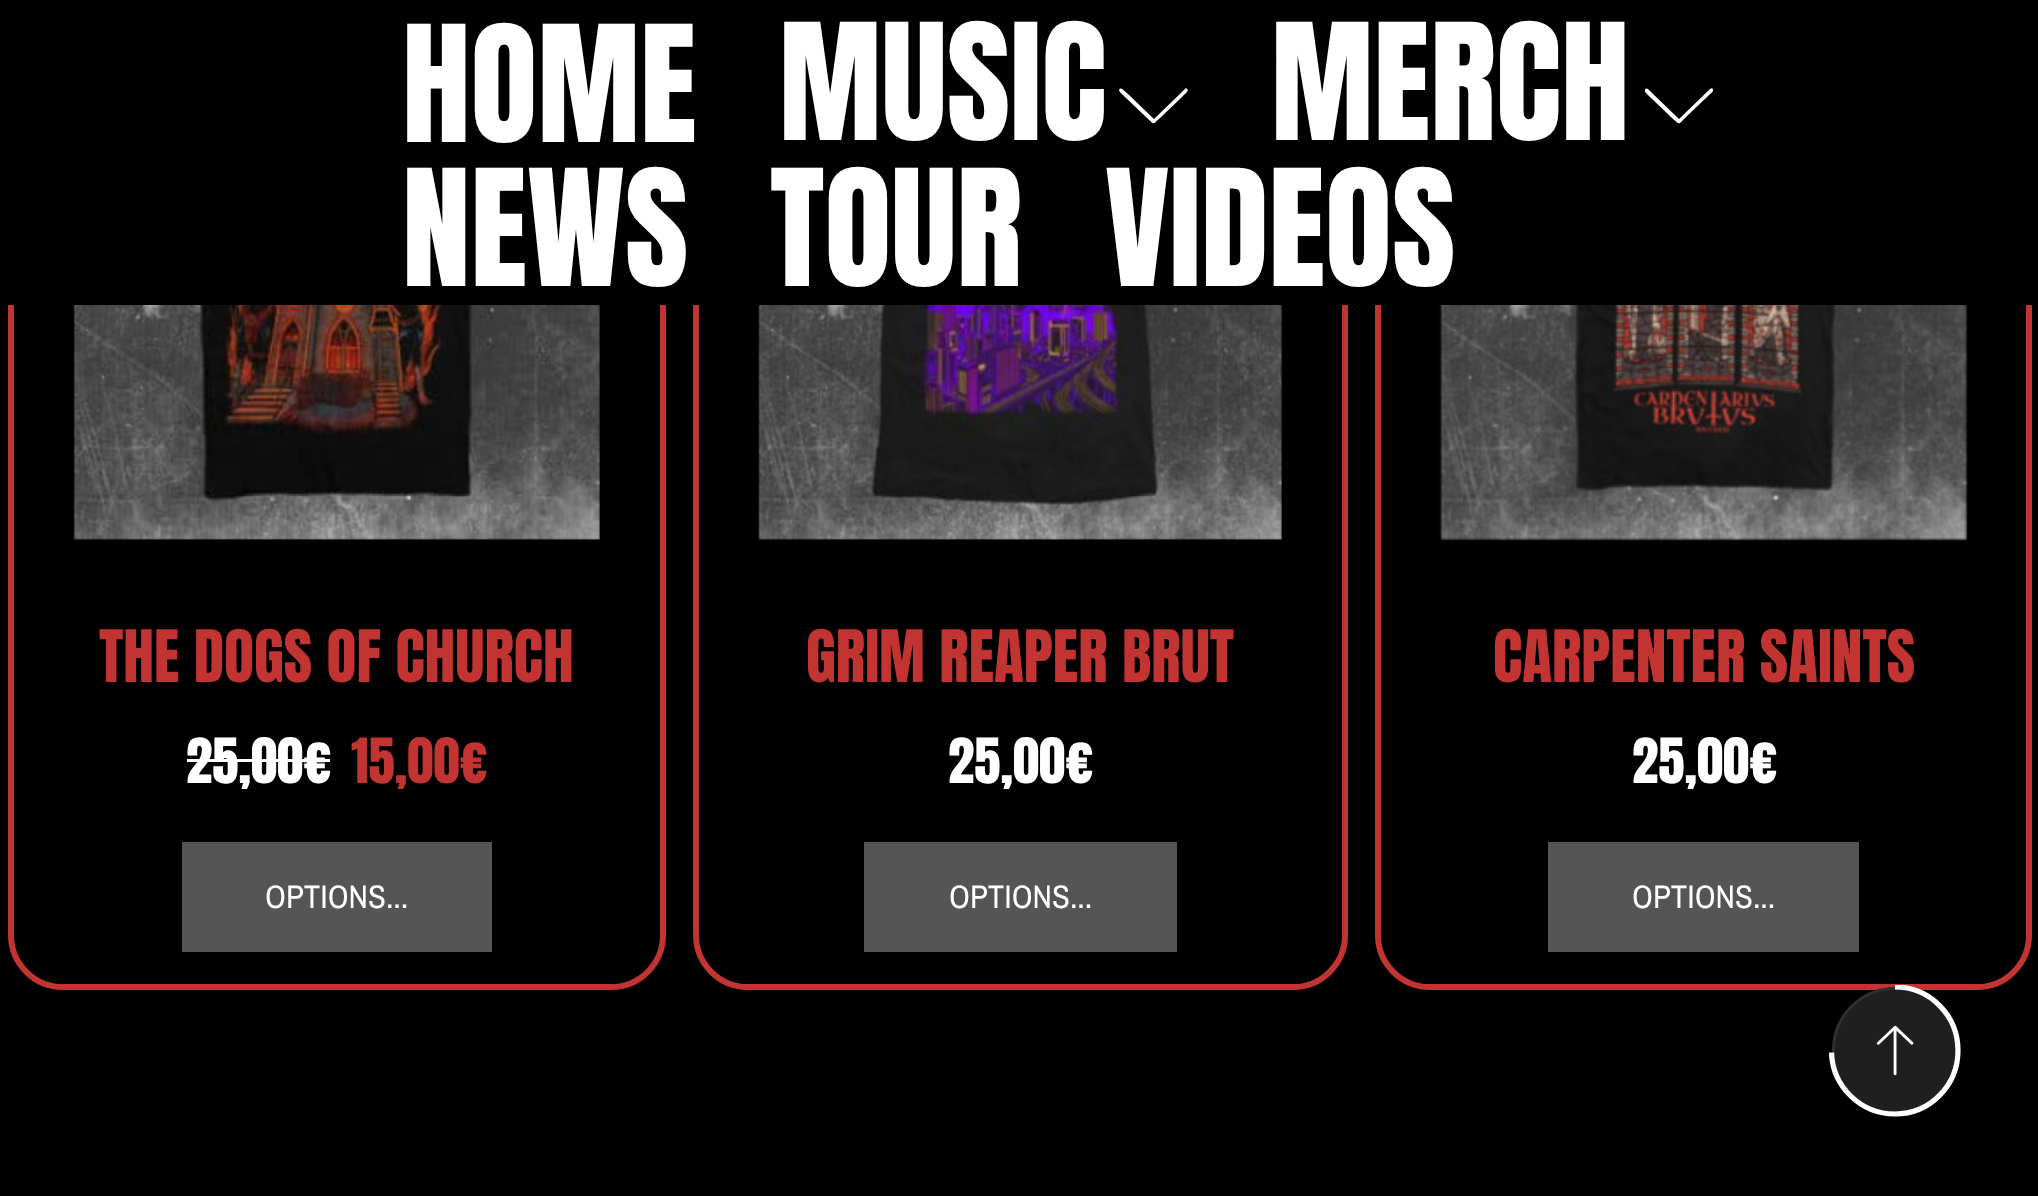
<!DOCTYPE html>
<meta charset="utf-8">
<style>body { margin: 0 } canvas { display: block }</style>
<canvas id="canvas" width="2038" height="1196"></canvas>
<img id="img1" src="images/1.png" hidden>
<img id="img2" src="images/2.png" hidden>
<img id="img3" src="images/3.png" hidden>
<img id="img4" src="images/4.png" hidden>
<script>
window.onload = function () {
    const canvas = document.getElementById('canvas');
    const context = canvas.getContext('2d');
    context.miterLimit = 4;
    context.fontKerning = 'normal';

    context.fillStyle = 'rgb(0, 0, 0)';
    context.fillRect(0, 0, 2038, 1196);
    context.beginPath();
    context.roundRect(11, -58, 652, 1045, 52);
    context.strokeStyle = 'rgb(194, 52, 50)';
    context.lineWidth = 6;
    context.stroke();
    context.beginPath();
    context.roundRect(696, -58, 649, 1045, 52);
    context.stroke();
    context.beginPath();
    context.roundRect(1378, -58, 651, 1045, 52);
    context.stroke();
    context.fillStyle = 'rgb(1, 1, 1)';
    context.fillRect(8, 0, 2024, 305);
    context.fillStyle = 'rgb(255, 255, 255)';
    context.beginPath();
    context.moveTo(1187, 89);
    context.bezierCurveTo(1187, 88, 1185, 88, 1185, 89);
    context.lineTo(1154, 119);
    context.lineTo(1128, 94);
    context.bezierCurveTo(1124, 91, 1121, 86, 1119, 90);
    context.bezierCurveTo(1119, 92, 1124, 96, 1125, 97);
    context.lineTo(1147, 118);
    context.bezierCurveTo(1155, 125, 1152, 125, 1160, 118);
    context.lineTo(1182, 97);
    context.bezierCurveTo(1184, 94, 1190, 91, 1187, 89);
    context.closePath();
    context.fill();
    context.save();
    context.beginPath();
    context.rect(1645, 72, 68, 68);
    context.clip();
    context.beginPath();
    context.moveTo(1713, 89);
    context.bezierCurveTo(1712, 88, 1711, 88, 1710, 89);
    context.lineTo(1679, 119);
    context.lineTo(1653, 94);
    context.bezierCurveTo(1650, 91, 1646, 86, 1645, 90);
    context.bezierCurveTo(1644, 92, 1649, 96, 1650, 97);
    context.lineTo(1672, 118);
    context.bezierCurveTo(1680, 125, 1678, 125, 1685, 118);
    context.lineTo(1707, 97);
    context.bezierCurveTo(1710, 94, 1715, 91, 1713, 89);
    context.closePath();
    context.fill();
    context.restore();
    context.drawImage(document.getElementById('img1'), 73, 305, 527, 235);
    context.fillRect(187, 759, 143, 3);
    context.fillStyle = 'rgb(85, 85, 85)';
    context.fillRect(182, 842, 310, 110);
    context.drawImage(document.getElementById('img2'), 758, 305, 524, 235);
    context.fillRect(864, 842, 313, 110);
    context.drawImage(document.getElementById('img3'), 1439, 305, 529, 236);
    context.fillRect(1548, 842, 311, 110);
    context.fillStyle = 'rgb(31, 31, 31)';
    context.beginPath();
    context.roundRect(1833.5, 988.5, 123, 124, 61.5);
    context.fill();
    context.strokeStyle = 'rgb(47, 47, 47)';
    context.lineWidth = 3;
    context.stroke();
    context.save();
    context.beginPath();
    context.rect(1829, 985, 132, 132);
    context.clip();
    context.beginPath();
    context.moveTo(1895, 987);
    context.bezierCurveTo(1930, 987, 1958, 1015.5, 1958, 1050.5);
    context.bezierCurveTo(1958, 1085.5, 1930, 1114, 1895, 1114);
    context.bezierCurveTo(1860.5, 1114, 1832.5, 1086.5, 1831.5, 1052.5);
    context.strokeStyle = 'rgb(255, 255, 255)';
    context.lineWidth = 5.2;
    context.stroke();
    context.restore();
    context.drawImage(document.getElementById('img4'), 1876, 1025, 38, 51);
    context.font = '137.5px Anton';
    context.fillStyle = 'rgb(255, 255, 255)';
    context.fillText('HOME', 402, 142);
    context.fillText('MUSIC', 779, 140);
    context.fillText('MERCH', 1271, 140);
    context.fillText('NEWS', 402, 286);
    context.fillText('TOUR', 770, 286);
    context.fillText('VIDEOS', 1105, 286);
    context.font = '61.5px Anton';
    context.fillStyle = 'rgb(194, 52, 50)';
    context.fillText('THE DOGS OF CHURCH', 99, 682);
    context.font = '53px Anton';
    context.fillStyle = 'rgb(255, 255, 255)';
    context.fillText('25,00€', 186, 783);
    context.fillStyle = 'rgb(194, 52, 50)';
    context.fillText('15,00€', 351, 783);
    context.font = '32.75px Archivo Narrow';
    context.fillStyle = 'rgb(255, 255, 255)';
    context.fillText('OPTIONS...', 265, 908);
    context.font = '61.5px Anton';
    context.fillStyle = 'rgb(194, 52, 50)';
    context.fillText('GRIM REAPER BRUT', 806, 682);
    context.font = '53px Anton';
    context.fillStyle = 'rgb(255, 255, 255)';
    context.fillText('25,00€', 948, 783);
    context.font = '32.75px Archivo Narrow';
    context.fillText('OPTIONS...', 949, 908);
    context.font = '61.5px Anton';
    context.fillStyle = 'rgb(194, 52, 50)';
    context.fillText('CARPENTER SAINTS', 1493, 682);
    context.font = '53px Anton';
    context.fillStyle = 'rgb(255, 255, 255)';
    context.fillText('25,00€', 1632, 783);
    context.font = '32.75px Archivo Narrow';
    context.fillText('OPTIONS...', 1632, 908);
};
</script>
